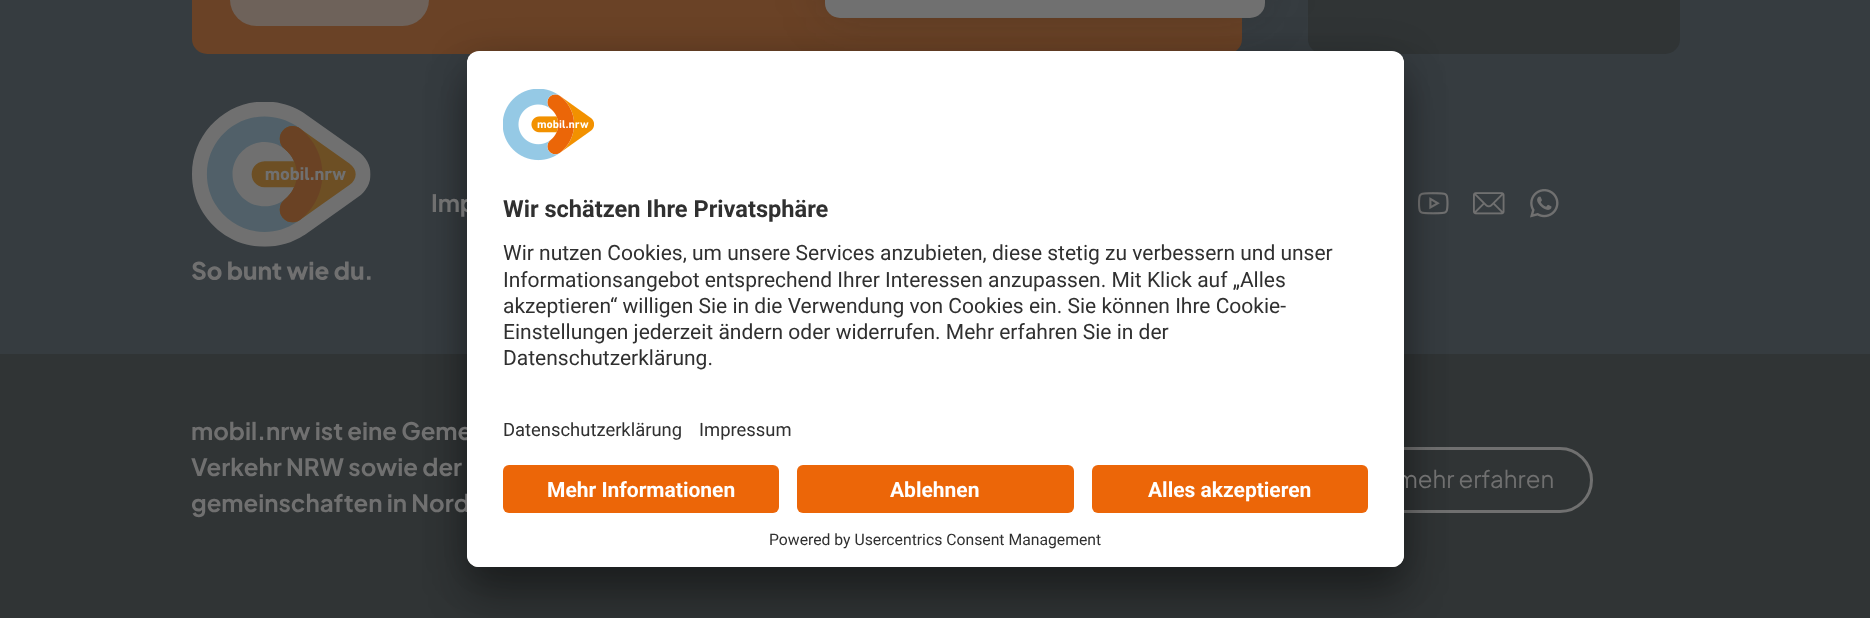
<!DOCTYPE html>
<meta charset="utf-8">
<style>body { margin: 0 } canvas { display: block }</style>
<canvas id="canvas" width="1870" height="618"></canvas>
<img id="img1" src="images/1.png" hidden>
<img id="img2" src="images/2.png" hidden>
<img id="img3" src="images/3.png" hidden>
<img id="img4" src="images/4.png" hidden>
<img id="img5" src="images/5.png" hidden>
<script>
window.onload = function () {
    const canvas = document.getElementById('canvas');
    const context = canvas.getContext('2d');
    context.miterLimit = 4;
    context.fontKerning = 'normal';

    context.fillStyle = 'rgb(54, 60, 64)';
    context.fillRect(0, 0, 1870, 618);
    context.fillStyle = 'rgb(106, 66, 38)';
    context.beginPath();
    context.roundRect(192, -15, 1050, 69, 15);
    context.fill();
    context.fillStyle = 'rgb(110, 98, 90)';
    context.beginPath();
    context.roundRect(230, -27, 199, 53, 27);
    context.fill();
    context.fillStyle = 'rgb(48, 52, 53)';
    context.beginPath();
    context.roundRect(1308, -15, 372, 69, 15);
    context.fill();
    context.fillStyle = 'rgba(36, 36, 36, 0.2)';
    context.filter = 'blur(24px)';
    context.beginPath();
    context.roundRect(825, -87, 440, 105, 15);
    context.fill();
    context.filter = 'none';
    context.fillStyle = 'rgb(112, 112, 112)';
    context.beginPath();
    context.roundRect(825, -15, 440, 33, 15);
    context.fill();
    context.drawImage(document.getElementById('img1'), 192, 102, 179, 178);
    context.drawImage(document.getElementById('img2'), 1418, 192, 31, 23);
    context.drawImage(document.getElementById('img3'), 1473, 192, 32, 23);
    context.drawImage(document.getElementById('img4'), 1530, 189, 29, 29);
    context.fillStyle = 'rgb(48, 52, 53)';
    context.fillRect(0, 354, 1870, 264);
    context.beginPath();
    context.roundRect(1315.5, 448.5, 276, 63, 31.5);
    context.strokeStyle = 'rgb(112, 112, 112)';
    context.lineWidth = 3;
    context.stroke();
    context.fillStyle = 'rgba(0, 0, 0, 0.3)';
    context.filter = 'blur(21px)';
    context.beginPath();
    context.roundRect(467, 81, 937, 516, 12);
    context.fill();
    context.filter = 'none';
    context.fillStyle = 'rgba(0, 0, 0, 0.22)';
    context.filter = 'blur(19.5px)';
    context.beginPath();
    context.roundRect(467, 59, 937, 516, 12);
    context.fill();
    context.filter = 'none';
    context.font = 'bold 24px Plus Jakarta Sans';
    context.fillStyle = 'rgb(112, 112, 112)';
    context.fillText('Imp', 431, 212);
    context.fillText('mobil.nrw ist eine Geme', 191, 440);
    context.fillText('Verkehr NRW sowie der', 191, 476);
    context.fillText('gemeinschaften in Nord', 191, 512);
    context.font = '24px Plus Jakarta Sans';
    context.fillText('mehr erfahren', 1396, 488);
    context.fillStyle = 'rgb(255, 255, 255)';
    context.beginPath();
    context.roundRect(467, 51, 937, 516, 12);
    context.fill();
    context.save();
    context.beginPath();
    context.roundRect(467, 51, 937, 516, 12);
    context.clip();
    context.beginPath();
    context.roundRect(467, 51, 937, 402, [12, 12, 0, 0]);
    context.clip();
    context.fillRect(467, 53, 937, 400);
    context.restore();
    context.drawImage(document.getElementById('img5'), 503, 89, 91, 72);
    context.font = 'bold 23.6px Roboto';
    context.fillStyle = 'rgb(48, 48, 48)';
    context.fillText('Wir schätzen Ihre Privatsphäre', 503, 217);
    context.font = '21px Roboto';
    context.fillText('Wir nutzen Cookies, um unsere Services anzubieten, diese stetig zu verbessern und unser', 503, 260);
    context.fillText('Informationsangebot entsprechend Ihrer Interessen anzupassen. Mit Klick auf „Alles', 503, 287);
    context.fillText('akzeptieren“ willigen Sie in die Verwendung von Cookies ein. Sie können Ihre Cookie-', 503, 313);
    context.fillText('Einstellungen jederzeit ändern oder widerrufen. Mehr erfahren Sie in der', 503, 339);
    context.fillText('Datenschutzerklärung.', 503, 365);
    context.font = '18.4px Roboto';
    context.fillText('Datenschutzerklärung', 503, 436);
    context.fillText('Impressum', 699, 436);
    context.fillStyle = 'rgb(255, 255, 255)';
    context.beginPath();
    context.roundRect(467, 453, 937, 114, [0, 0, 12, 12]);
    context.fill();
    context.fillStyle = 'rgb(236, 102, 8)';
    context.beginPath();
    context.roundRect(503, 465, 276, 48, 6);
    context.fill();
    context.font = 'bold 21px Roboto';
    context.fillStyle = 'rgb(255, 255, 255)';
    context.fillText('Mehr Informationen', 547, 497);
    context.fillStyle = 'rgb(236, 102, 8)';
    context.beginPath();
    context.roundRect(797, 465, 277, 48, 6);
    context.fill();
    context.fillStyle = 'rgb(255, 255, 255)';
    context.fillText('Ablehnen', 890, 497);
    context.fillStyle = 'rgb(236, 102, 8)';
    context.beginPath();
    context.roundRect(1092, 465, 276, 48, 6);
    context.fill();
    context.fillStyle = 'rgb(255, 255, 255)';
    context.fillText('Alles akzeptieren', 1148, 497);
    context.font = '15.75px Roboto';
    context.fillStyle = 'rgb(48, 48, 48)';
    context.fillText('Powered by Usercentrics Consent Management', 769, 545);
};
</script>
